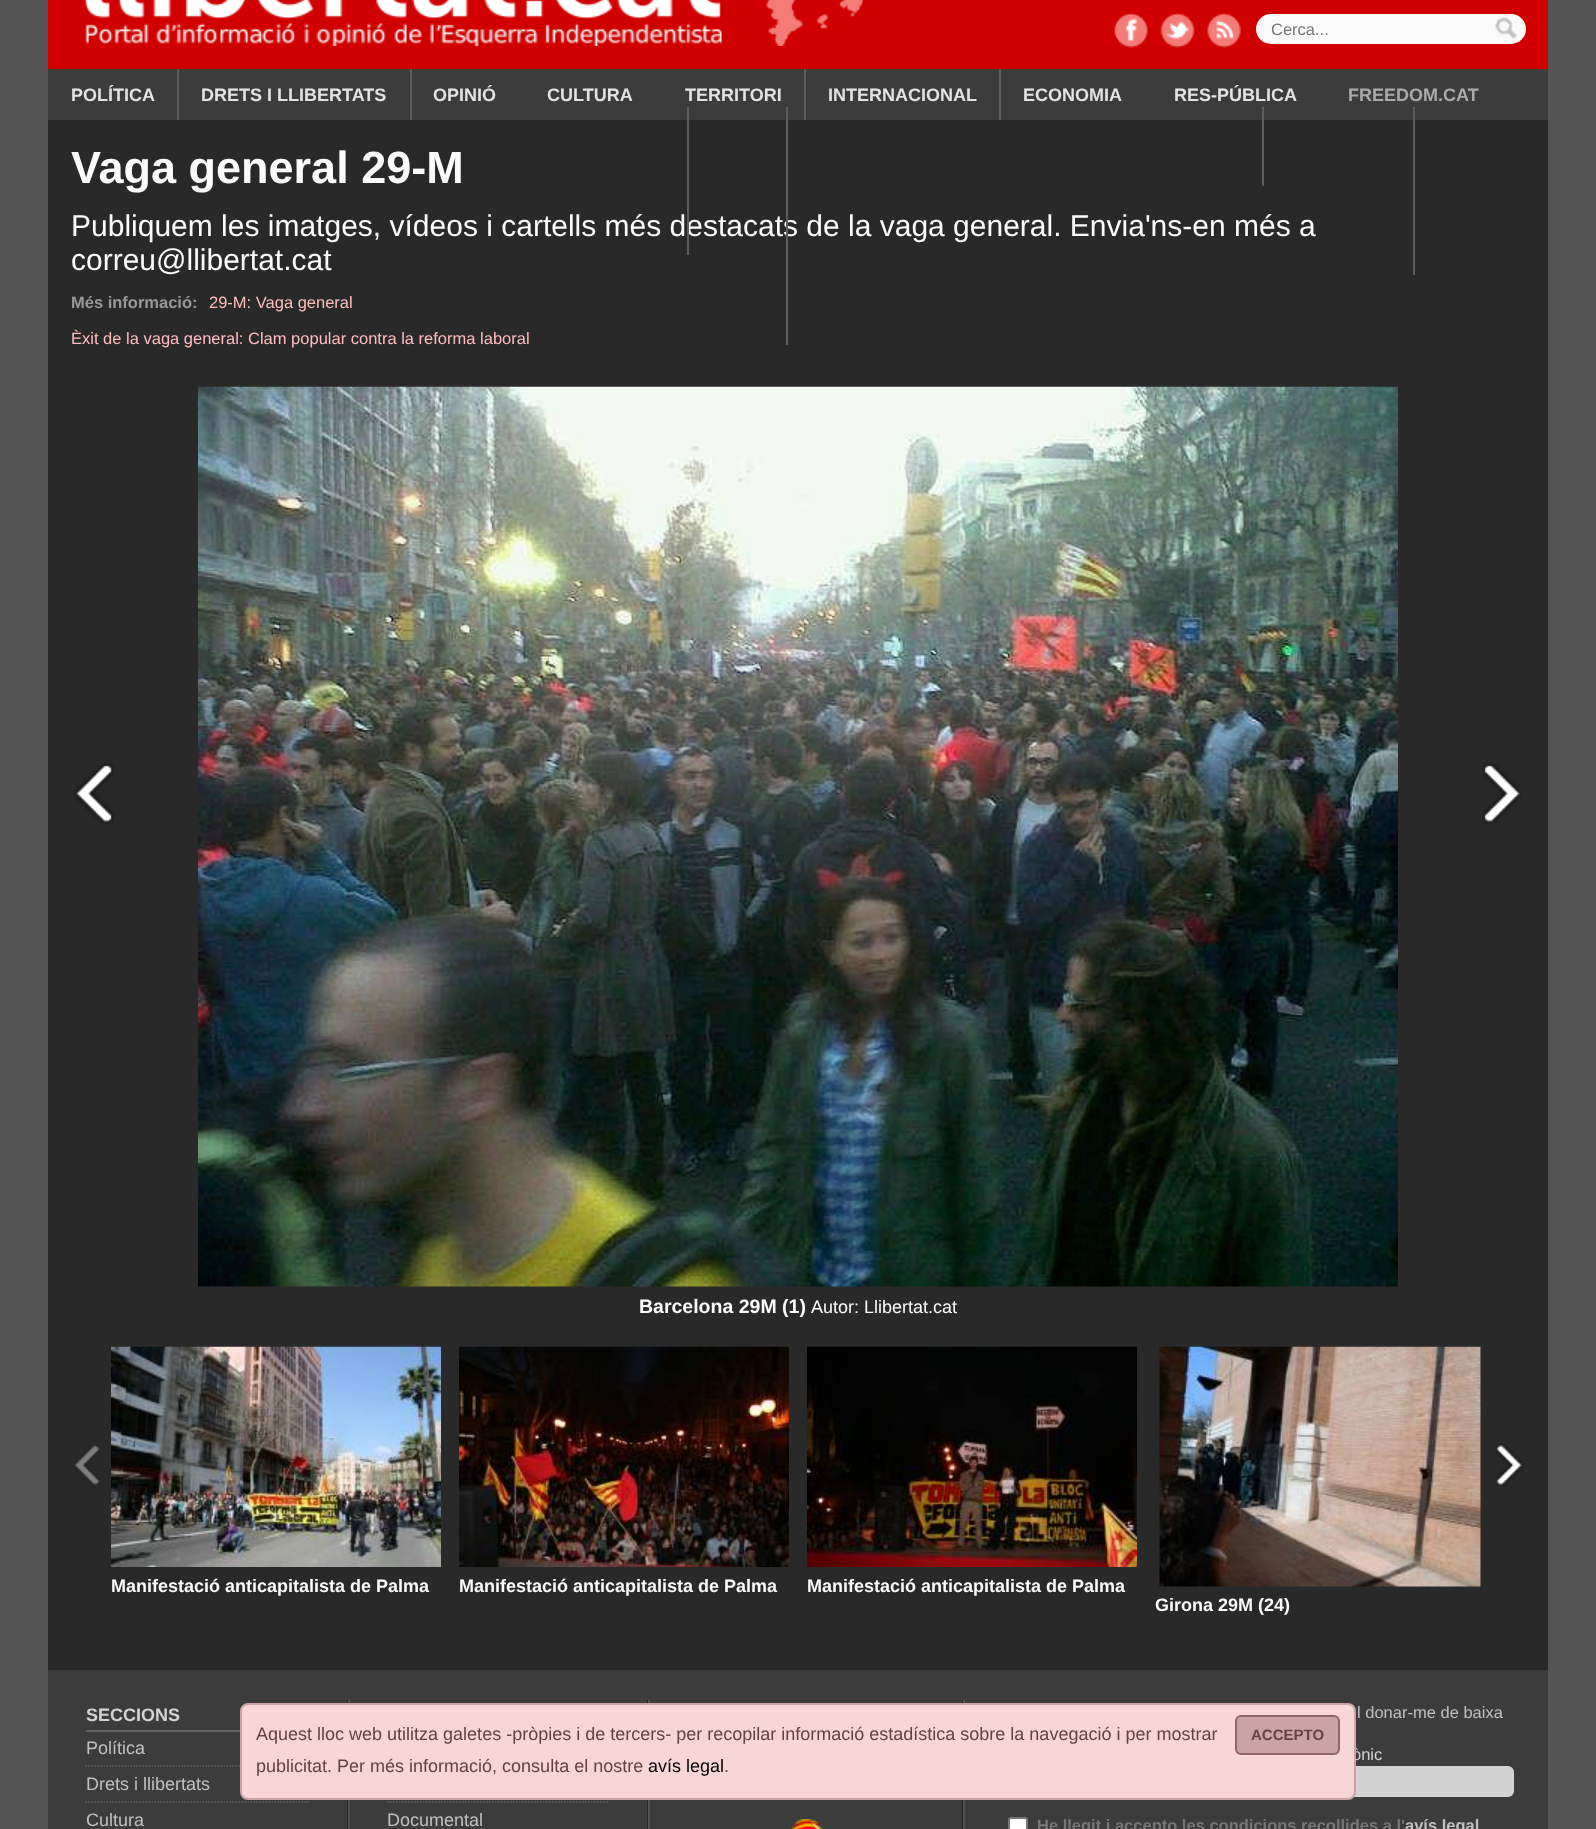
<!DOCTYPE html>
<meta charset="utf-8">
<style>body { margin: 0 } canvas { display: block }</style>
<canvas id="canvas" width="1596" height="1829"></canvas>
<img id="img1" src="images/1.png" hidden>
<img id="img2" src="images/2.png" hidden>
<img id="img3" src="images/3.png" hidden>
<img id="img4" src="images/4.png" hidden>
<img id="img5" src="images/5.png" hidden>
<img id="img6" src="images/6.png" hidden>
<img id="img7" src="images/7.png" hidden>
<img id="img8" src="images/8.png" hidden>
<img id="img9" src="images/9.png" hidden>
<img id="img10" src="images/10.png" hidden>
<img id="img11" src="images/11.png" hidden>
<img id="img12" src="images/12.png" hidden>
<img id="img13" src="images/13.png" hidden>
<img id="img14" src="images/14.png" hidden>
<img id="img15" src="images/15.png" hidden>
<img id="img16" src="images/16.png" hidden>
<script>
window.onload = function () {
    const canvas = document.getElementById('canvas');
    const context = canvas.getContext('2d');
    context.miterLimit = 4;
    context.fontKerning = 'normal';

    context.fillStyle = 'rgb(84, 84, 84)';
    context.fillRect(0, 0, 1596, 1829);
    context.fillStyle = 'rgb(208, 0, 0)';
    context.fillRect(48, 0, 1500, 69);
    context.drawImage(document.getElementById('img1'), 766, 0, 98, 46);
    context.drawImage(document.getElementById('img2'), 85, 0, 637, 46);
    context.drawImage(document.getElementById('img3'), 1114, 13, 34, 35);
    context.drawImage(document.getElementById('img4'), 1160, 13, 35, 35);
    context.drawImage(document.getElementById('img5'), 1207, 13, 34, 35);
    context.fillStyle = 'rgb(250, 250, 250)';
    context.beginPath();
    context.roundRect(1256, 14, 270, 30, 15);
    context.fill();
    context.drawImage(document.getElementById('img6'), 1495, 17, 22, 22);
    context.fillStyle = 'rgb(60, 60, 60)';
    context.fillRect(48, 69, 1500, 51);
    context.fillStyle = 'rgb(93, 93, 93)';
    context.fillRect(177, 69, 2, 51);
    context.fillRect(410, 69, 2, 51);
    context.fillRect(804, 69, 2, 51);
    context.fillRect(999, 69, 2, 51);
    context.fillStyle = 'rgb(41, 41, 41)';
    context.fillRect(48, 120, 1500, 1550);
    context.fillStyle = 'rgb(93, 93, 93)';
    context.fillRect(1262, 107, 2, 79);
    context.fillRect(1413, 107, 2, 168);
    context.drawImage(document.getElementById('img7'), 75, 763, 39, 61);
    context.drawImage(document.getElementById('img8'), 198, 386, 1200, 901);
    context.drawImage(document.getElementById('img9'), 1482, 763, 39, 61);
    context.drawImage(document.getElementById('img10'), 74, 1445, 26, 40);
    context.drawImage(document.getElementById('img11'), 1495, 1444, 28, 42);
    context.drawImage(document.getElementById('img12'), 111, 1346, 330, 221);
    context.drawImage(document.getElementById('img13'), 459, 1346, 330, 221);
    context.drawImage(document.getElementById('img14'), 807, 1346, 330, 221);
    context.drawImage(document.getElementById('img15'), 1159, 1346, 322, 241);
    context.fillStyle = 'rgb(60, 60, 60)';
    context.fillRect(48, 1670, 1500, 159);
    context.fillStyle = 'rgb(37, 37, 37)';
    context.fillRect(347, 1700, 1, 129);
    context.fillStyle = 'rgb(99, 99, 99)';
    context.fillRect(86, 1730, 154, 2);
    context.beginPath();
    context.moveTo(85.5, 1766);
    context.lineTo(309, 1766);
    context.strokeStyle = 'rgb(99, 99, 99)';
    context.lineWidth = 1.5;
    context.setLineDash([1.5, 1.5]);
    context.stroke();
    context.beginPath();
    context.moveTo(85.5, 1802);
    context.lineTo(309, 1802);
    context.stroke();
    context.fillStyle = 'rgb(37, 37, 37)';
    context.fillRect(647, 1700, 1, 129);
    context.fillStyle = 'rgb(82, 82, 82)';
    context.fillRect(348, 1700, 2, 129);
    context.beginPath();
    context.moveTo(387, 1802);
    context.lineTo(609, 1802);
    context.stroke();
    context.drawImage(document.getElementById('img16'), 790, 1819, 33, 10);
    context.fillStyle = 'rgb(37, 37, 37)';
    context.fillRect(962, 1700, 1, 129);
    context.fillStyle = 'rgb(82, 82, 82)';
    context.fillRect(648, 1700, 2, 129);
    context.fillRect(963, 1700, 2, 129);
    context.fillStyle = 'rgb(211, 211, 211)';
    context.beginPath();
    context.roundRect(1257, 1766, 257, 31, 6);
    context.fill();
    context.fillStyle = 'rgb(255, 255, 255)';
    context.beginPath();
    context.roundRect(1009, 1818, 18, 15, 2);
    context.fill();
    context.strokeStyle = 'rgb(118, 118, 118)';
    context.lineWidth = 2;
    context.setLineDash([]);
    context.stroke();
    context.font = '16.5px Liberation Sans';
    context.fillStyle = 'rgb(119, 119, 119)';
    context.fillText('Cerca...', 1271, 35);
    context.font = 'bold 18px Liberation Sans';
    context.fillStyle = 'rgb(227, 227, 227)';
    context.fillText('POLÍTICA', 71, 101);
    context.fillText('DRETS I LLIBERTATS', 201, 101);
    context.fillText('OPINIÓ', 433, 101);
    context.fillText('CULTURA', 547, 101);
    context.fillText('TERRITORI', 685, 101);
    context.fillText('INTERNACIONAL', 828, 101);
    context.fillText('ECONOMIA', 1023, 101);
    context.fillText('RES-PÚBLICA', 1174, 101);
    context.fillStyle = 'rgb(170, 170, 170)';
    context.fillText('FREEDOM.CAT', 1348, 101);
    context.font = 'bold 45px Liberation Sans';
    context.fillStyle = 'rgb(251, 251, 251)';
    context.fillText('Vaga general 29-M', 71, 183);
    context.font = '30px Liberation Sans';
    context.fillText('Publiquem les imatges, vídeos i cartells més destacats de la vaga general. Envia\'ns-en més a', 71, 236);
    context.fillStyle = 'rgb(93, 93, 93)';
    context.fillRect(786, 107, 2, 238);
    context.fillRect(687, 107, 2, 148);
    context.fillStyle = 'rgb(251, 251, 251)';
    context.fillText('correu@llibertat.cat', 71, 270);
    context.font = 'bold 16.5px Liberation Sans';
    context.fillStyle = 'rgb(152, 152, 152)';
    context.fillText('Més informació:', 71, 308);
    context.font = '16.5px Liberation Sans';
    context.fillStyle = 'rgb(255, 190, 190)';
    context.fillText('29-M: Vaga general', 209, 308);
    context.fillText('Èxit de la vaga general: Clam popular contra la reforma laboral', 71, 344);
    context.save();
    context.beginPath();
    context.rect(71, 387, 1455, 930);
    context.clip();
    context.font = 'bold 19.5px Liberation Sans';
    context.fillStyle = 'rgb(251, 251, 251)';
    context.fillText('Barcelona 29M (1)', 639, 1313);
    context.restore();
    context.font = '18px Liberation Sans';
    context.fillStyle = 'rgb(251, 251, 251)';
    context.fillText('Autor: Llibertat.cat', 811, 1313);
    context.font = 'bold 18px Liberation Sans';
    context.fillText('Manifestació anticapitalista de Palma', 111, 1592);
    context.fillText('Manifestació anticapitalista de Palma', 459, 1592);
    context.fillText('Manifestació anticapitalista de Palma', 807, 1592);
    context.fillText('Girona 29M (24)', 1155, 1611);
    context.fillStyle = 'rgb(211, 211, 211)';
    context.fillText('SECCIONS', 86, 1721);
    context.font = '18px Liberation Sans';
    context.fillStyle = 'rgb(192, 192, 192)';
    context.fillText('Política', 86, 1754);
    context.fillText('Drets i llibertats', 86, 1790);
    context.fillText('Cultura', 86, 1826);
    context.fillText('Documental', 387, 1826);
    context.font = '16.5px Liberation Sans';
    context.fillText('l donar-me de baixa', 1357, 1718);
    context.fillStyle = 'rgb(211, 211, 211)';
    context.fillText('ònic', 1352, 1760);
    context.fillStyle = 'rgb(248, 214, 214)';
    context.beginPath();
    context.roundRect(241, 1704, 1114, 95, 7);
    context.fill();
    context.strokeStyle = 'rgb(202, 164, 164)';
    context.stroke();
    context.font = '18px Liberation Sans';
    context.fillStyle = 'rgb(100, 66, 66)';
    context.fillText('.', 724, 1772);
    context.fillStyle = 'rgb(0, 0, 0)';
    context.fillText('avís legal', 648, 1772);
    context.fillStyle = 'rgb(100, 66, 66)';
    context.fillText('publicitat. Per més informació, consulta el nostre', 256, 1772);
    context.fillText('Aquest lloc web utilitza galetes -pròpies i de tercers- per recopilar informació estadística sobre la navegació i per mostrar', 256, 1740);
    context.fillStyle = 'rgb(202, 164, 164)';
    context.beginPath();
    context.roundRect(1236, 1716, 103, 38, 5);
    context.fill();
    context.strokeStyle = 'rgb(145, 103, 103)';
    context.stroke();
    context.font = 'bold 15px Liberation Sans';
    context.fillStyle = 'rgb(100, 66, 66)';
    context.fillText('ACCEPTO', 1251, 1740);
    context.font = 'bold 16.5px Liberation Sans';
    context.fillStyle = 'rgb(119, 119, 119)';
    context.fillText('He llegit i accepto les condicions recollides a l\'', 1037, 1831);
    context.fillStyle = 'rgb(192, 192, 192)';
    context.fillText('avís legal', 1405, 1831);
};
</script>
